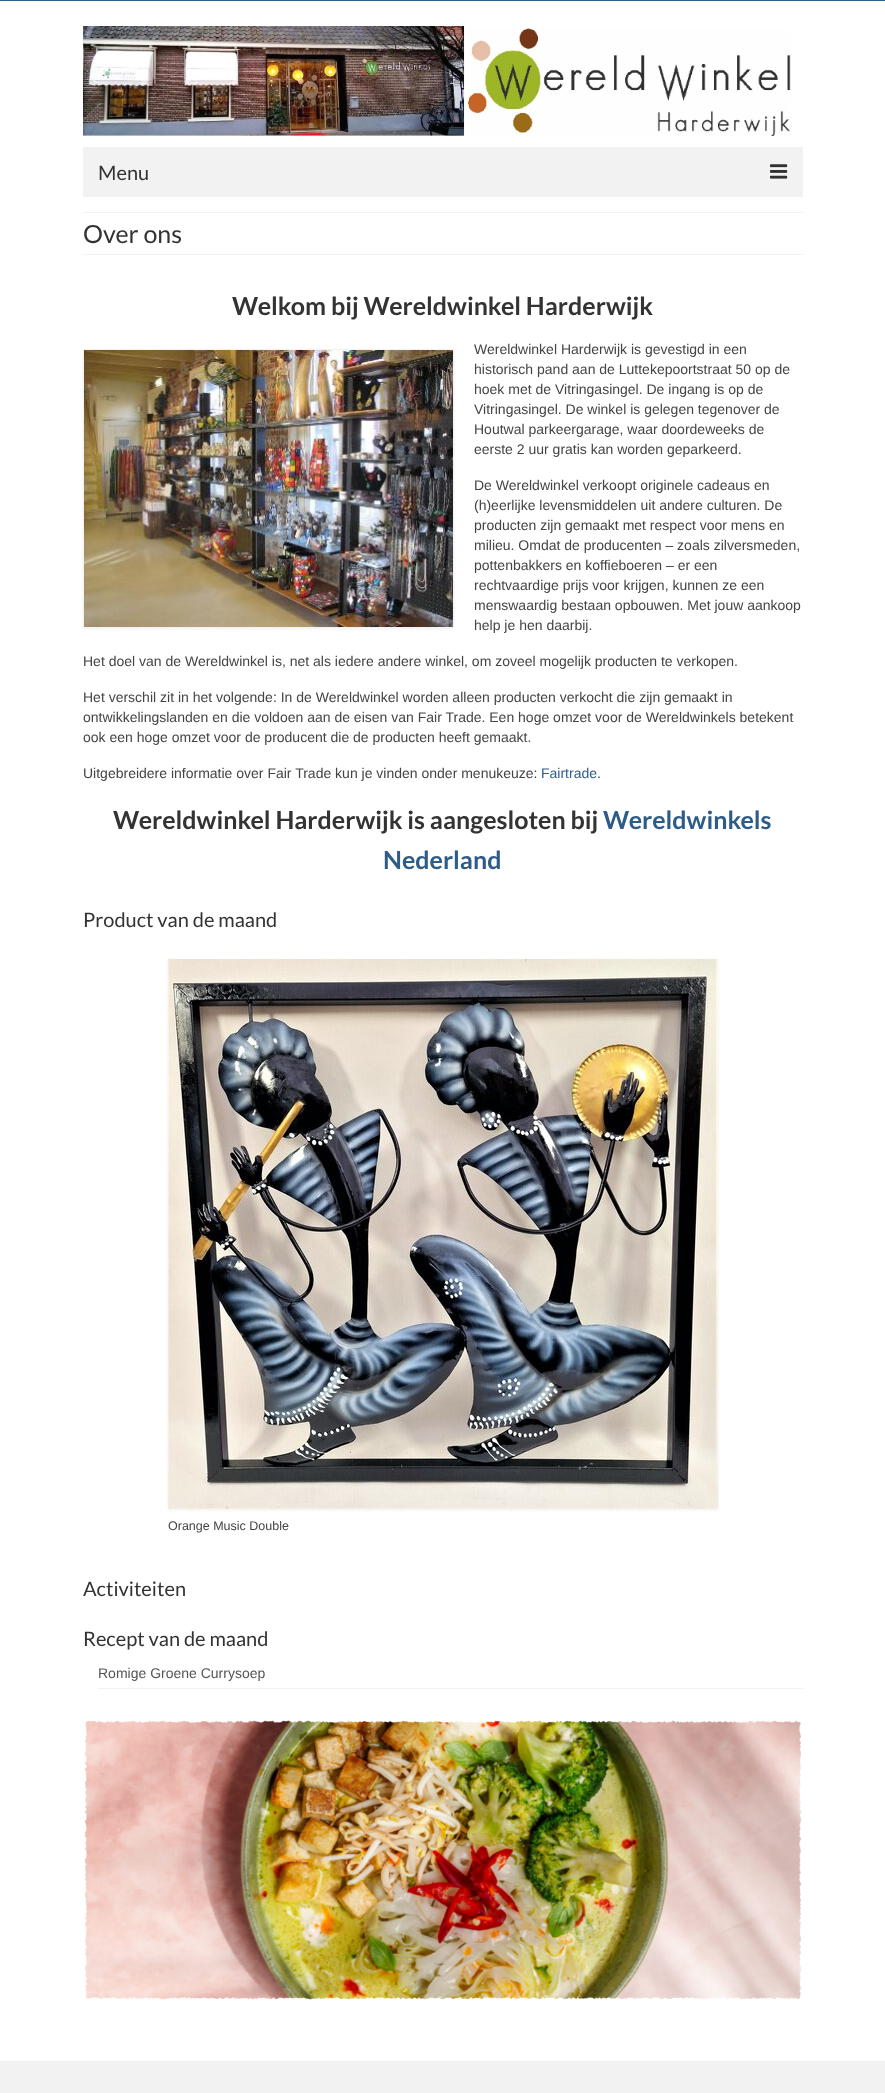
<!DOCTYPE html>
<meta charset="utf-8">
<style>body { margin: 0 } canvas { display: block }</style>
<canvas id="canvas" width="885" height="2093"></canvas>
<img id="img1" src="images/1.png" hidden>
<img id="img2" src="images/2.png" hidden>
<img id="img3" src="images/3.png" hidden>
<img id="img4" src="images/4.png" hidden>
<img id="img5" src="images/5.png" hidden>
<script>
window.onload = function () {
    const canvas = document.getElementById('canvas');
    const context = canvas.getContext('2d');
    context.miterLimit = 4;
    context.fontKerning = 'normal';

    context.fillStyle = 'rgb(255, 255, 255)';
    context.fillRect(0, 0, 885, 2093);
    context.fillStyle = 'rgb(45, 92, 136)';
    context.fillRect(0, 0, 885, 1);
    context.drawImage(document.getElementById('img1'), 83, 26, 708, 110);
    context.fillStyle = 'rgb(242, 242, 242)';
    context.fillRect(83, 147, 720, 50);
    context.drawImage(document.getElementById('img2'), 770, 164, 18, 15);
    context.fillRect(83, 212, 720, 1);
    context.fillRect(83, 254, 720, 1);
    context.fillStyle = 'rgba(0, 0, 0, 0.06)';
    context.filter = 'blur(1.5px)';
    context.beginPath();
    context.rect(83, 350, 371, 279);
    context.fill();
    context.filter = 'none';
    context.strokeStyle = 'rgb(242, 242, 242)';
    context.strokeRect(83.5, 349.5, 370, 278);
    context.drawImage(document.getElementById('img3'), 84, 350, 369, 277);
    context.filter = 'blur(1.5px)';
    context.beginPath();
    context.rect(168, 960, 550, 550);
    context.fill();
    context.filter = 'none';
    context.drawImage(document.getElementById('img4'), 168, 959, 550, 550);
    context.fillStyle = 'rgb(242, 242, 242)';
    context.fillRect(98, 1688, 705, 1);
    context.drawImage(document.getElementById('img5'), 84, 1720, 718, 280);
    context.fillRect(0, 2061, 885, 32);
    context.font = '20px Lato';
    context.fillStyle = 'rgb(51, 51, 51)';
    context.fillText('Menu', 98, 180);
    context.font = '25px Lato';
    context.fillText('Over ons', 83, 243);
    context.font = 'bold 25px Lato';
    context.fillText('Welkom bij Wereldwinkel Harderwijk', 232, 315);
    context.font = '14px Liberation Sans';
    context.fillStyle = 'rgb(68, 68, 68)';
    context.fillText('Wereldwinkel Harderwijk is gevestigd in een', 474, 354);
    context.fillText('historisch pand aan de Luttekepoortstraat 50 op de', 474, 374);
    context.fillText('hoek met de Vitringasingel. De ingang is op de', 474, 394);
    context.fillText('Vitringasingel. De winkel is gelegen tegenover de', 474, 414);
    context.fillText('Houtwal parkeergarage, waar doordeweeks de', 474, 434);
    context.fillText('eerste 2 uur gratis kan worden geparkeerd.', 474, 454);
    context.fillText('De Wereldwinkel verkoopt originele cadeaus en', 474, 490);
    context.fillText('(h)eerlijke levensmiddelen uit andere culturen. De', 474, 510);
    context.fillText('producten zijn gemaakt met respect voor mens en', 474, 530);
    context.fillText('milieu. Omdat de producenten – zoals zilversmeden,', 474, 550);
    context.fillText('pottenbakkers en koffieboeren – er een', 474, 570);
    context.fillText('rechtvaardige prijs voor krijgen, kunnen ze een', 474, 590);
    context.fillText('menswaardig bestaan opbouwen. Met jouw aankoop', 474, 610);
    context.fillText('help je hen daarbij.', 474, 630);
    context.fillText('Het doel van de Wereldwinkel is, net als iedere andere winkel, om zoveel mogelijk producten te verkopen.', 83, 666);
    context.fillText('Het verschil zit in het volgende: In de Wereldwinkel worden alleen producten verkocht die zijn gemaakt in', 83, 702);
    context.fillText('ontwikkelingslanden en die voldoen aan de eisen van Fair Trade. Een hoge omzet voor de Wereldwinkels betekent', 83, 722);
    context.fillText('ook een hoge omzet voor de producent die de producten heeft gemaakt.', 83, 742);
    context.fillText('Uitgebreidere informatie over Fair Trade kun je vinden onder menukeuze:', 83, 778);
    context.fillStyle = 'rgb(45, 92, 136)';
    context.fillText('Fairtrade', 541, 778);
    context.fillStyle = 'rgb(68, 68, 68)';
    context.fillText('.', 597, 778);
    context.font = 'bold 25px Lato';
    context.fillStyle = 'rgb(51, 51, 51)';
    context.fillText('Wereldwinkel Harderwijk is aangesloten bij', 113, 829);
    context.fillStyle = 'rgb(45, 92, 136)';
    context.fillText('Wereldwinkels', 603, 829);
    context.fillText('Nederland', 383, 869);
    context.font = '20px Lato';
    context.fillStyle = 'rgb(51, 51, 51)';
    context.fillText('Product van de maand', 83, 927);
    context.font = '12.5px Liberation Sans';
    context.fillStyle = 'rgb(68, 68, 68)';
    context.fillText('Orange Music Double', 168, 1530);
    context.font = '20px Lato';
    context.fillStyle = 'rgb(51, 51, 51)';
    context.fillText('Activiteiten', 83, 1596);
    context.fillText('Recept van de maand', 83, 1646);
    context.font = '14px Liberation Sans';
    context.fillStyle = 'rgb(85, 85, 85)';
    context.fillText('Romige Groene Currysoep', 98, 1678);
};
</script>
